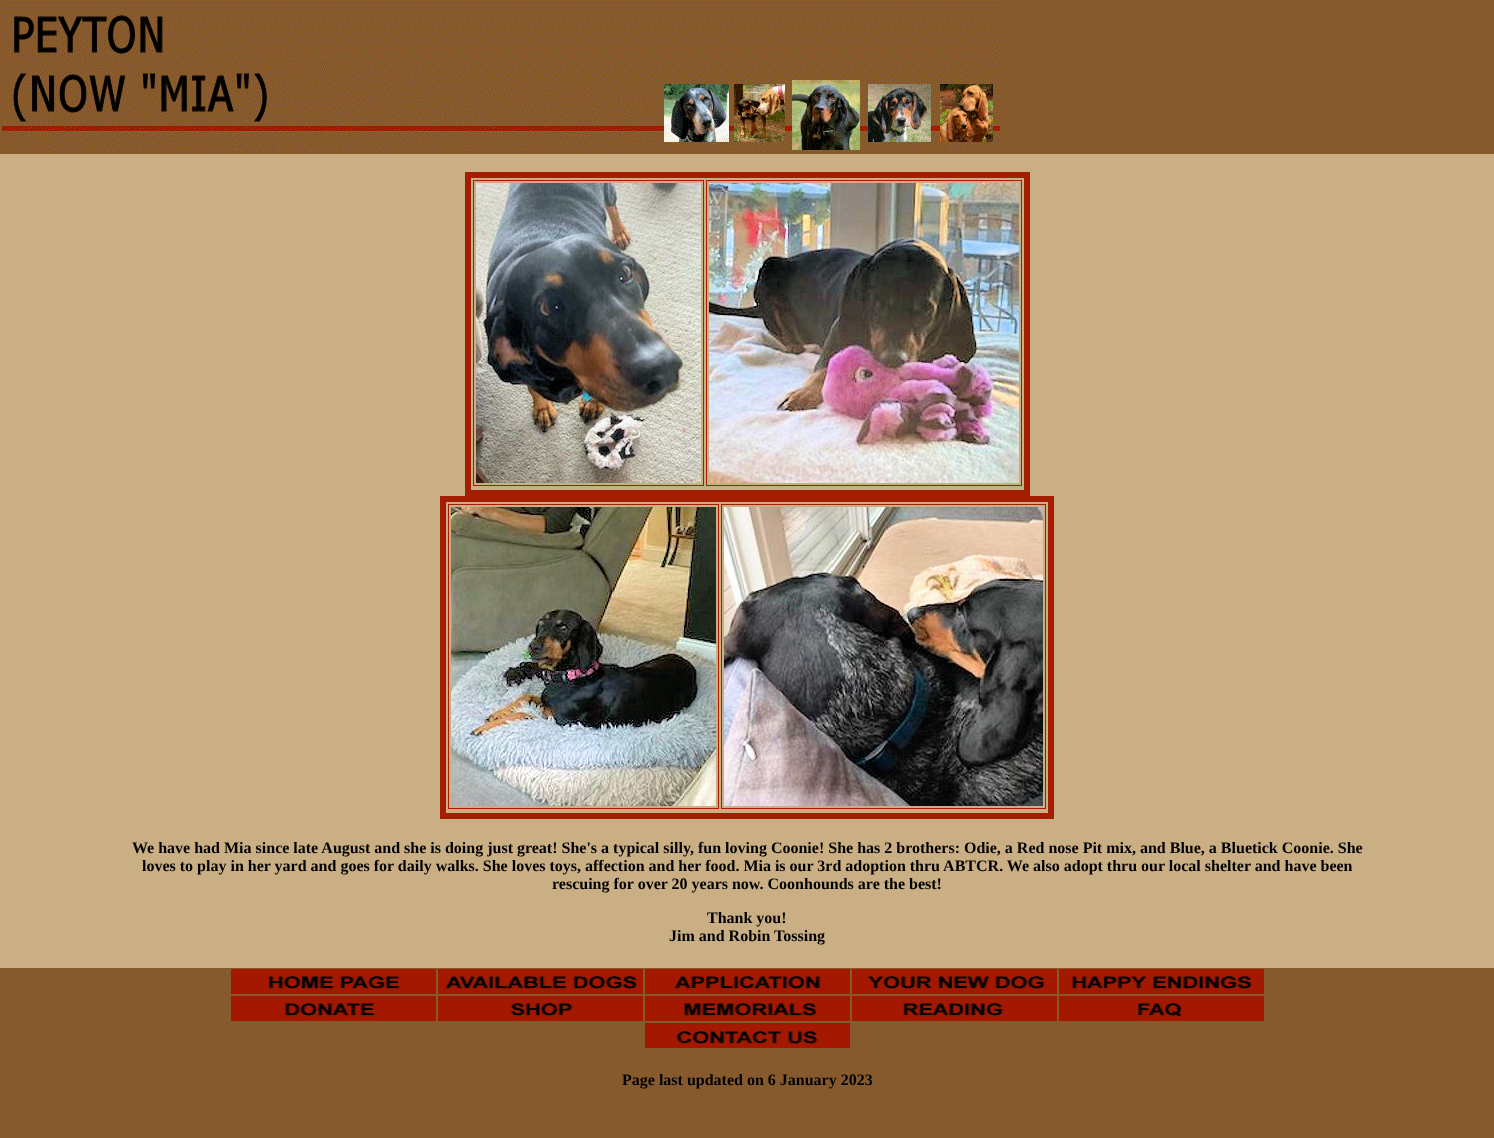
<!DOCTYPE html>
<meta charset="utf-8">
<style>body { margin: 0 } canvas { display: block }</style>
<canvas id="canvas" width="1494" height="1138"></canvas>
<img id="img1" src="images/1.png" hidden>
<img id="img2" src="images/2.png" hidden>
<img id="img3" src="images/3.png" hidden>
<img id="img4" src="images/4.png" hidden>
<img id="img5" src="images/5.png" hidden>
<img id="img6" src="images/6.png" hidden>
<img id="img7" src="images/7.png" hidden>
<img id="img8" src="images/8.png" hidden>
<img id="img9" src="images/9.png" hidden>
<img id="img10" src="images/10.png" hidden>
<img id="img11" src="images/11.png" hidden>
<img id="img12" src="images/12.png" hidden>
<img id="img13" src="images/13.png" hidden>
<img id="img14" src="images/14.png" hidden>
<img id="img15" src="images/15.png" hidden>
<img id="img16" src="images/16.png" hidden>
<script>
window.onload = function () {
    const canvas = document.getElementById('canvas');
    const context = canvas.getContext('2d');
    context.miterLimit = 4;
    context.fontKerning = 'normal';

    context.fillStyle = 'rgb(135, 90, 45)';
    context.fillRect(0, 0, 1494, 1138);
    context.drawImage(document.getElementById('img1'), 2, 2, 998, 150);
    context.fillStyle = 'rgb(202, 175, 133)';
    context.fillRect(0, 154, 1494, 814);
    context.strokeStyle = 'rgb(165, 30, 3)';
    context.lineWidth = 6;
    context.strokeRect(468, 175, 559, 318);
    context.lineWidth = 1;
    context.strokeRect(473.5, 180.5, 230, 305);
    context.drawImage(document.getElementById('img2'), 476, 183, 225, 300);
    context.strokeRect(706.5, 180.5, 315, 305);
    context.drawImage(document.getElementById('img3'), 709, 183, 310, 300);
    context.lineWidth = 6;
    context.strokeRect(443, 499, 608, 317);
    context.lineWidth = 1;
    context.strokeRect(448.5, 504.5, 270, 304);
    context.drawImage(document.getElementById('img4'), 451, 507, 265, 299);
    context.strokeRect(721.5, 504.5, 324, 304);
    context.drawImage(document.getElementById('img5'), 724, 507, 319, 299);
    context.drawImage(document.getElementById('img6'), 231, 969, 205, 25);
    context.drawImage(document.getElementById('img7'), 438, 969, 205, 25);
    context.drawImage(document.getElementById('img8'), 645, 969, 205, 25);
    context.drawImage(document.getElementById('img9'), 852, 969, 205, 25);
    context.drawImage(document.getElementById('img10'), 1059, 969, 205, 25);
    context.drawImage(document.getElementById('img11'), 231, 996, 205, 25);
    context.drawImage(document.getElementById('img12'), 438, 996, 205, 25);
    context.drawImage(document.getElementById('img13'), 645, 996, 205, 25);
    context.drawImage(document.getElementById('img14'), 852, 996, 205, 25);
    context.drawImage(document.getElementById('img15'), 1059, 996, 205, 25);
    context.drawImage(document.getElementById('img16'), 645, 1023, 205, 25);
    context.font = 'bold 16px Liberation Serif';
    context.fillStyle = 'rgb(0, 0, 0)';
    context.fillText('We have had Mia since late August and she is doing just great! She\'s a typical silly, fun loving Coonie! She has 2 brothers: Odie, a Red nose Pit mix, and Blue, a Bluetick Coonie. She', 132, 853);
    context.fillText('loves to play in her yard and goes for daily walks. She loves toys, affection and her food. Mia is our 3rd adoption thru ABTCR. We also adopt thru our local shelter and have been', 142, 871);
    context.fillText('rescuing for over 20 years now. Coonhounds are the best!', 552, 889);
    context.fillText('Thank you!', 707, 923);
    context.fillText('Jim and Robin Tossing', 669, 941);
    context.fillText('Page last updated on 6 January 2023', 622, 1085);
};
</script>
